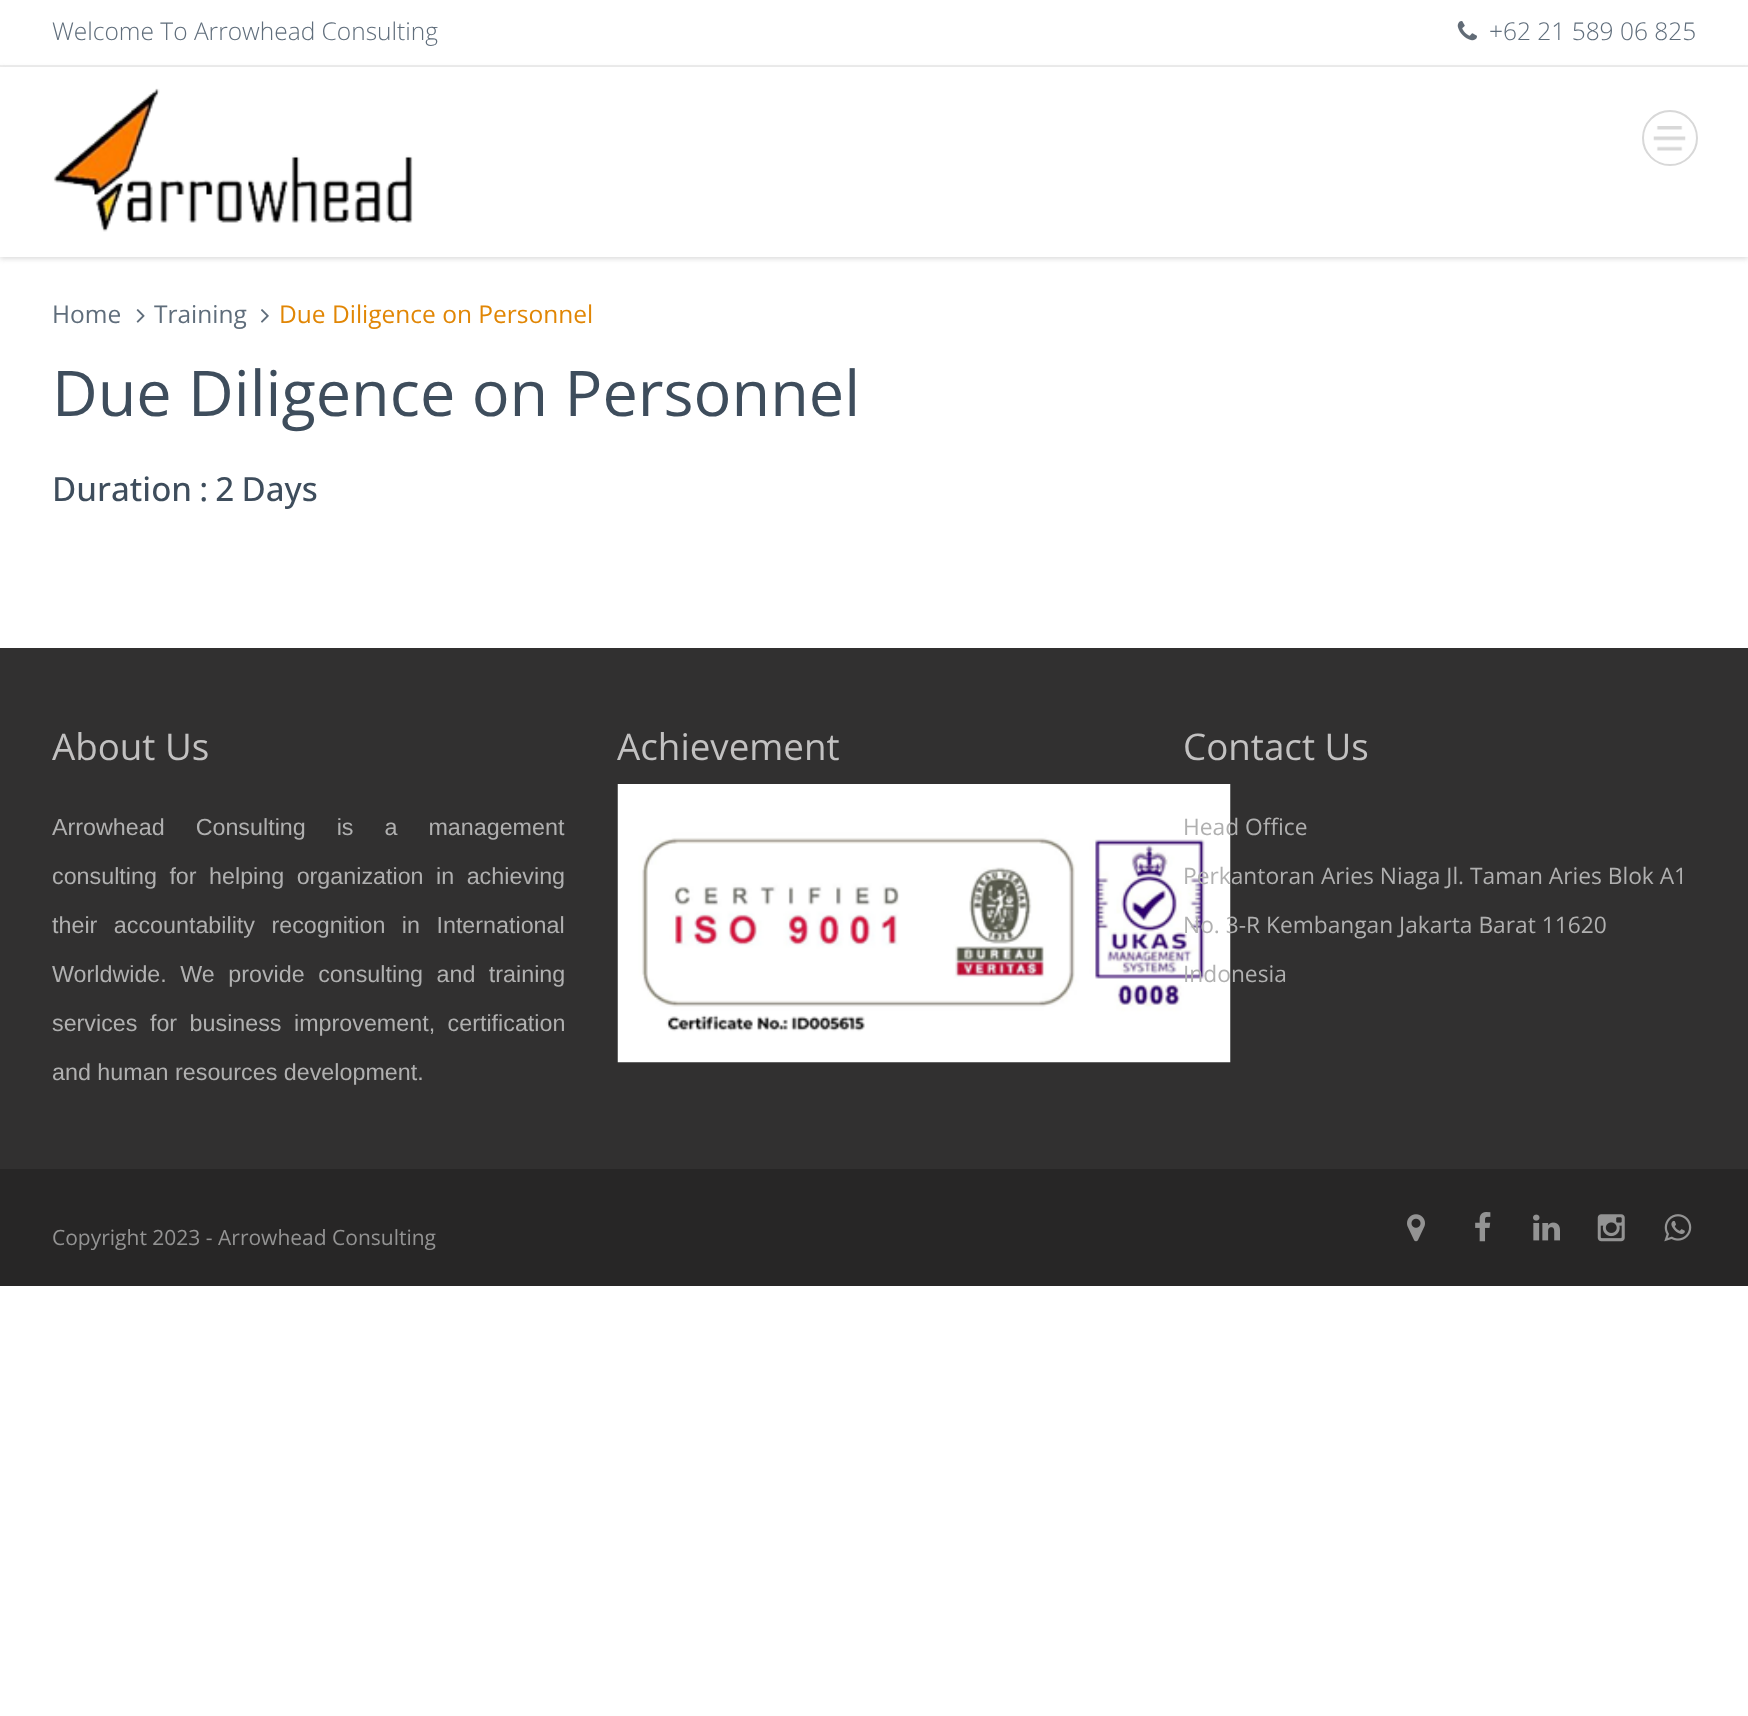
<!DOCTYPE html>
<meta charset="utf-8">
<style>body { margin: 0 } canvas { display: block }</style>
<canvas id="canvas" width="1748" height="1716"></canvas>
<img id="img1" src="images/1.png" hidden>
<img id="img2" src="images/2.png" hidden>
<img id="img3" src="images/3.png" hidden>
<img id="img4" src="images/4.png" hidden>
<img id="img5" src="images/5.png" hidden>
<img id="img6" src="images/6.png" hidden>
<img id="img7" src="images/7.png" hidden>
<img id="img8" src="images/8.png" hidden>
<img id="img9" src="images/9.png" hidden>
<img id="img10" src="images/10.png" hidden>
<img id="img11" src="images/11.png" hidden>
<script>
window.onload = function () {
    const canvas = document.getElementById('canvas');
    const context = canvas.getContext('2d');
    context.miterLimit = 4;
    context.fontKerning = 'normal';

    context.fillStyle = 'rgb(255, 255, 255)';
    context.fillRect(0, 0, 1748, 1716);
    context.fillStyle = 'rgb(238, 238, 238)';
    context.fillRect(0, 65, 1748, 2);
    context.drawImage(document.getElementById('img1'), 1457, 21, 20, 20);
    context.save();
    context.beginPath();
    context.moveTo(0, 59);
    context.lineTo(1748, 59);
    context.lineTo(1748, 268);
    context.lineTo(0, 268);
    context.closePath();
    context.moveTo(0, 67);
    context.lineTo(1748, 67);
    context.lineTo(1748, 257);
    context.lineTo(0, 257);
    context.closePath();
    context.clip('evenodd');
    context.fillStyle = 'rgb(221, 221, 221)';
    context.filter = 'blur(2.5px)';
    context.beginPath();
    context.rect(0, 68, 1748, 191);
    context.fill();
    context.filter = 'none';
    context.restore();
    context.drawImage(document.getElementById('img2'), 53, 88, 360, 144);
    context.drawImage(document.getElementById('img3'), 1653, 126, 33, 25);
    context.beginPath();
    context.arc(1670, 138, 27, 0, 2 * Math.PI);
    context.strokeStyle = 'rgb(216, 216, 216)';
    context.lineWidth = 2;
    context.stroke();
    context.drawImage(document.getElementById('img4'), 136, 309, 9, 14);
    context.drawImage(document.getElementById('img5'), 261, 309, 8, 14);
    context.fillStyle = 'rgb(49, 48, 48)';
    context.fillRect(0, 648, 1748, 521);
    context.drawImage(document.getElementById('img6'), 617, 784, 614, 279);
    context.fillStyle = 'rgb(39, 38, 38)';
    context.fillRect(0, 1169, 1748, 117);
    context.drawImage(document.getElementById('img7'), 1407, 1214, 18, 28);
    context.drawImage(document.getElementById('img8'), 1475, 1212, 16, 30);
    context.drawImage(document.getElementById('img9'), 1533, 1214, 27, 27);
    context.drawImage(document.getElementById('img10'), 1597, 1214, 28, 28);
    context.drawImage(document.getElementById('img11'), 1664, 1214, 28, 28);
    context.font = '300 24.5px Open Sans';
    context.fillStyle = 'rgb(95, 109, 123)';
    context.fillText('Welcome To Arrowhead Consulting', 52, 40);
    context.fillText('+62 21 589 06 825', 1489, 40);
    context.font = '24.5px Open Sans';
    context.fillText('Home', 52, 323);
    context.fillText('Training', 154, 323);
    context.fillStyle = 'rgb(225, 134, 4)';
    context.fillText('Due Diligence on Personnel', 279, 323);
    context.font = '63px Open Sans';
    context.fillStyle = 'rgb(62, 77, 92)';
    context.fillText('Due Diligence on Personnel', 52, 416);
    context.wordSpacing = '-1.5px';
    context.font = '500 33.25px Open Sans';
    context.fillText('Duration : 2 Days', 52, 501);
    context.wordSpacing = '0px';
    context.font = '36.75px Open Sans';
    context.fillStyle = 'rgb(194, 193, 193)';
    context.fillText('About Us', 52, 760);
    context.wordSpacing = '24.5px';
    context.font = '23.3px Liberation Sans';
    context.fillStyle = 'rgb(176, 176, 176)';
    context.fillText('Arrowhead Consulting is a management', 52, 835);
    context.wordSpacing = '6px';
    context.fillText('consulting for helping organization in achieving', 52, 884);
    context.wordSpacing = '10px';
    context.fillText('their accountability recognition in International', 52, 933);
    context.wordSpacing = '7px';
    context.fillText('Worldwide. We provide consulting and training', 52, 982);
    context.wordSpacing = '6px';
    context.fillText('services for business improvement, certification', 52, 1031);
    context.wordSpacing = '0px';
    context.fillText('and human resources development.', 52, 1080);
    context.font = '36.75px Open Sans';
    context.fillStyle = 'rgb(194, 193, 193)';
    context.fillText('Achievement', 617, 760);
    context.fillText('Contact Us', 1183, 760);
    context.font = '22.75px Open Sans';
    context.fillStyle = 'rgb(176, 176, 176)';
    context.fillText('Head Office', 1183, 835);
    context.fillText('Perkantoran Aries Niaga Jl. Taman Aries Blok A1', 1183, 884);
    context.fillText('No. 3-R Kembangan Jakarta Barat 11620', 1183, 933);
    context.fillText('Indonesia', 1183, 982);
    context.font = '21px Open Sans';
    context.fillStyle = 'rgb(147, 147, 147)';
    context.fillText('Copyright 2023 - Arrowhead Consulting', 52, 1245);
};
</script>
